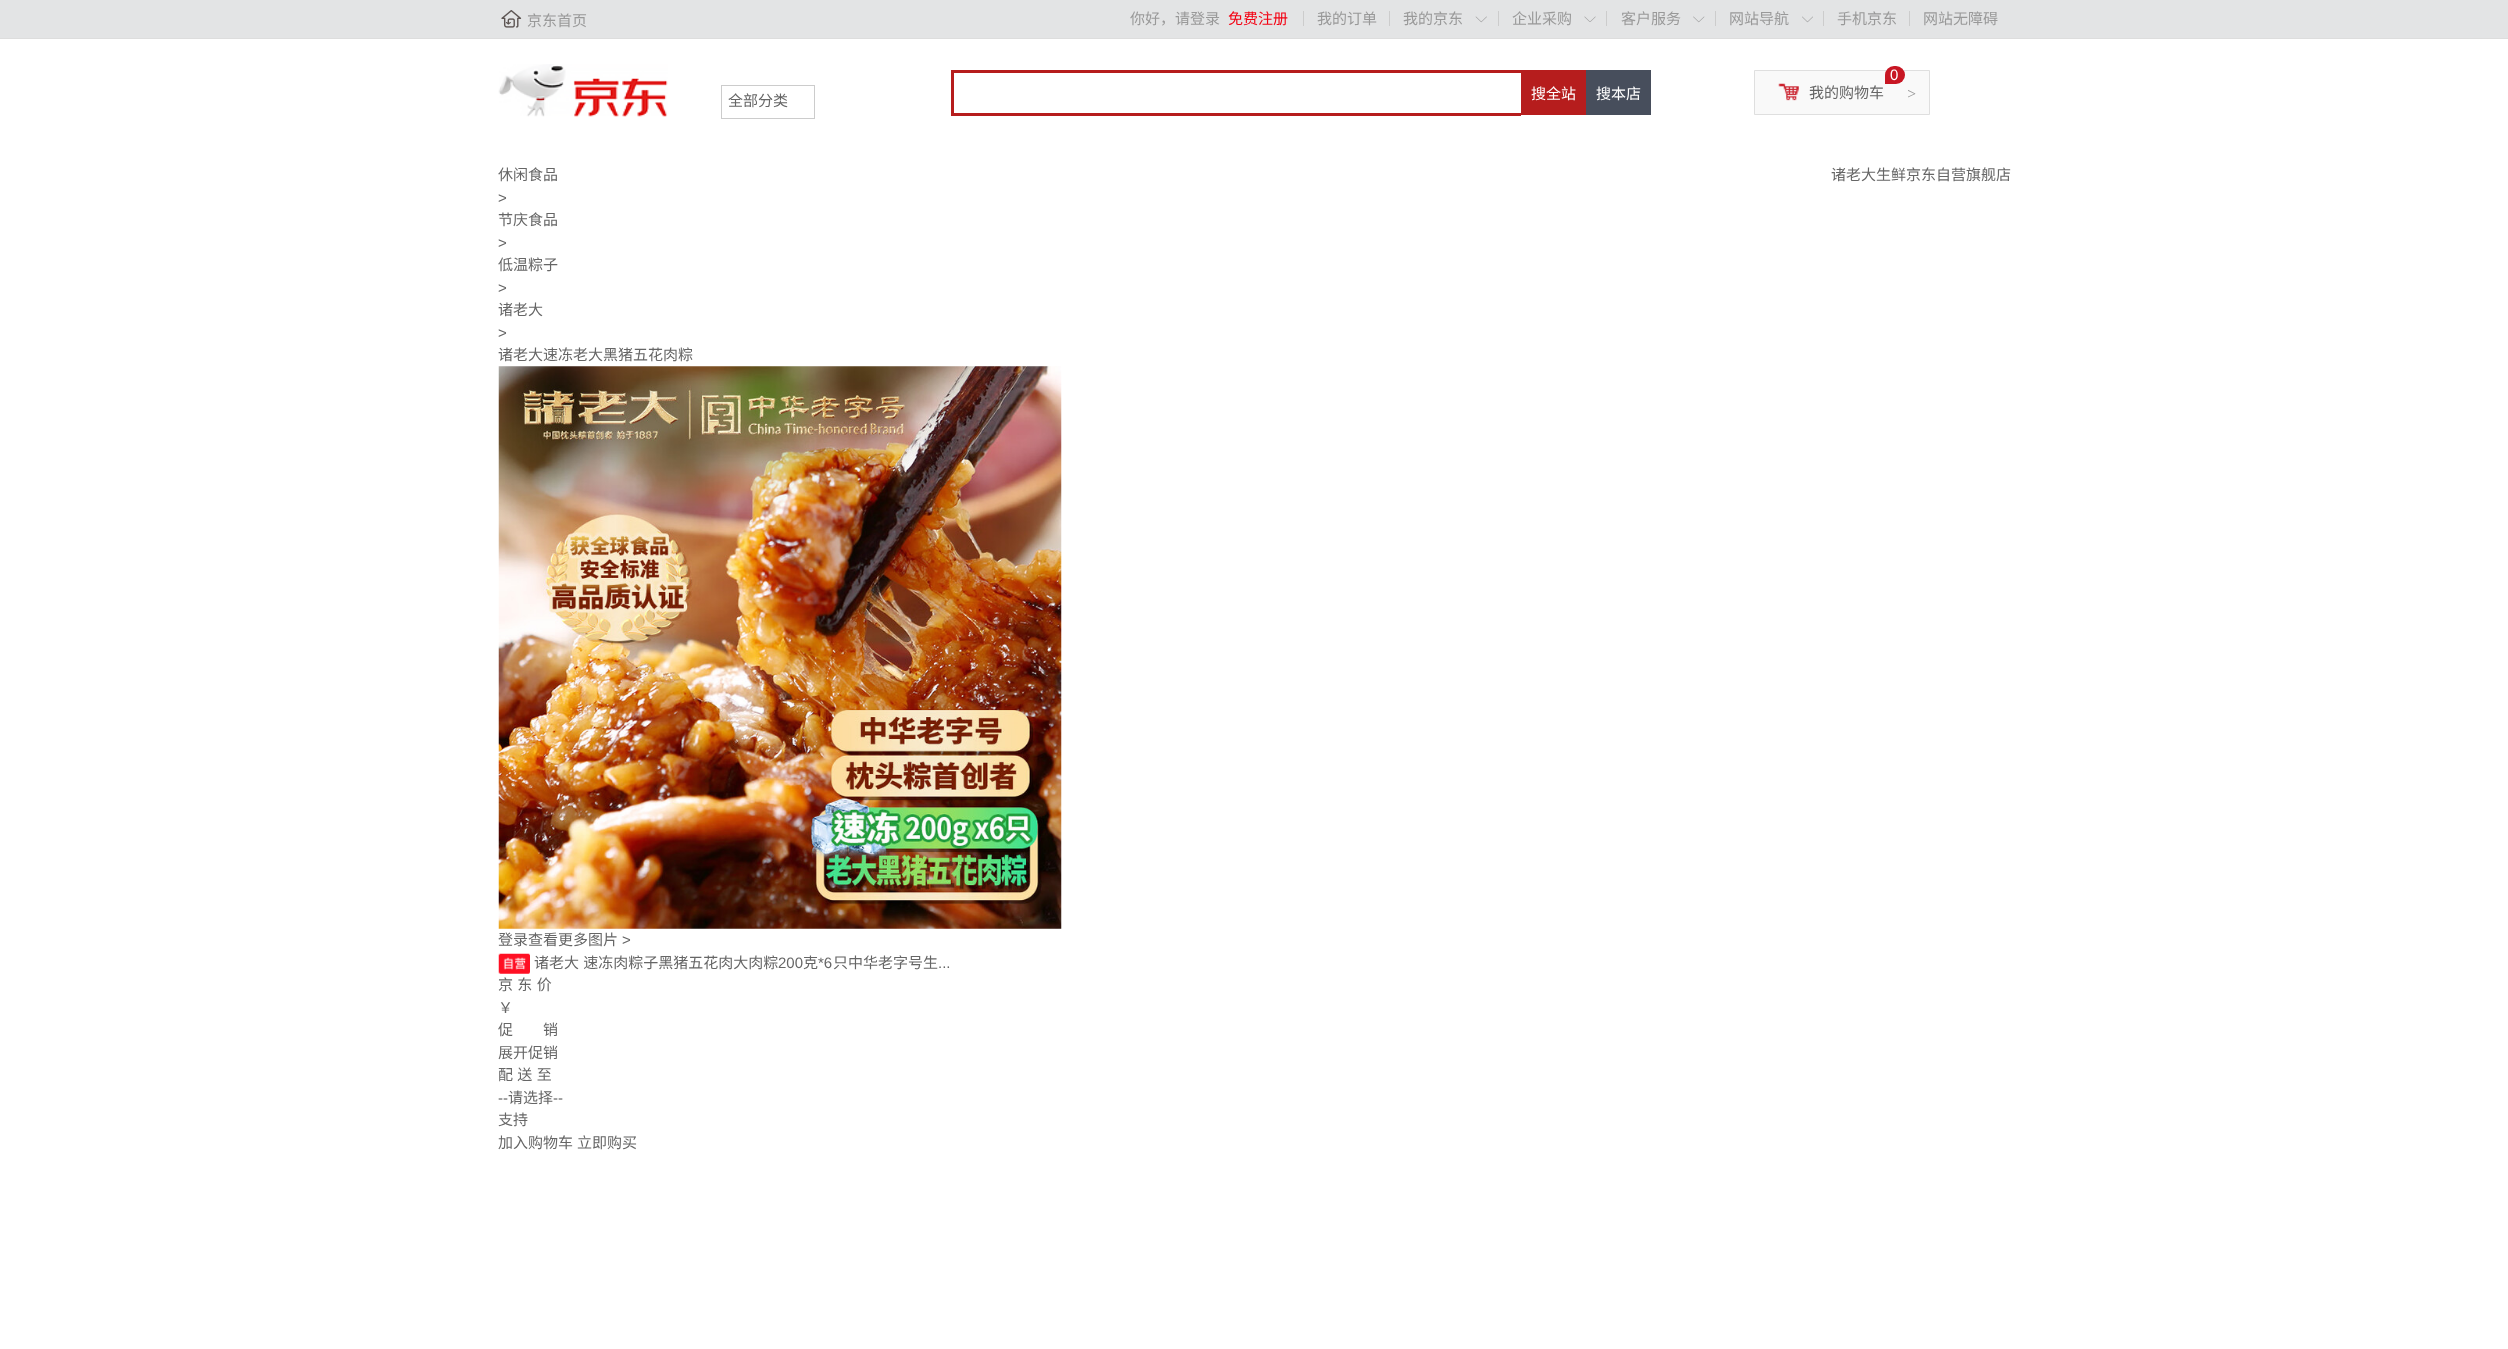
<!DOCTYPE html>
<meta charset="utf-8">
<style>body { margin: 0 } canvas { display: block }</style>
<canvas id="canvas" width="2508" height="1349"></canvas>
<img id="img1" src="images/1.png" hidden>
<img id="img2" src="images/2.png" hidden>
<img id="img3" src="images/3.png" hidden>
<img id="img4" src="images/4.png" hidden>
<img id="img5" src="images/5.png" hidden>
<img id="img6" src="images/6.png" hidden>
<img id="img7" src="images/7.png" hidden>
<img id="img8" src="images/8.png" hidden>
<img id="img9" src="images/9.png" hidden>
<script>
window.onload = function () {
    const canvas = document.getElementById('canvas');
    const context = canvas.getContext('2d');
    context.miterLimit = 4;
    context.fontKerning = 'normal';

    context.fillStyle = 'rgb(255, 255, 255)';
    context.fillRect(0, 0, 2508, 1349);
    context.fillStyle = 'rgb(227, 228, 229)';
    context.fillRect(0, 0, 2508, 38);
    context.fillStyle = 'rgb(221, 221, 221)';
    context.fillRect(0, 38, 2508, 1);
    context.drawImage(document.getElementById('img1'), 501, 10, 21, 18);
    context.fillStyle = 'rgb(204, 204, 204)';
    context.fillRect(1303, 11, 1, 15);
    context.fillRect(1389, 11, 1, 15);
    context.drawImage(document.getElementById('img2'), 1475, 16, 12, 7);
    context.fillRect(1498, 11, 1, 15);
    context.drawImage(document.getElementById('img3'), 1584, 16, 12, 6);
    context.fillRect(1606, 11, 1, 15);
    context.drawImage(document.getElementById('img4'), 1693, 16, 12, 7);
    context.fillRect(1715, 11, 1, 15);
    context.drawImage(document.getElementById('img5'), 1802, 16, 11, 7);
    context.fillRect(1823, 11, 1, 15);
    context.fillRect(1909, 11, 1, 15);
    context.drawImage(document.getElementById('img6'), 498, 64, 170, 53);
    context.strokeStyle = 'rgb(204, 204, 204)';
    context.strokeRect(721.5, 85.5, 93, 33);
    context.fillStyle = 'rgb(182, 29, 29)';
    context.fillRect(951, 70, 570, 3);
    context.fillRect(951, 113, 570, 3);
    context.fillRect(951, 70, 3, 45);
    context.fillRect(1521, 70, 65, 45);
    context.fillStyle = 'rgb(71, 78, 92)';
    context.fillRect(1586, 70, 65, 45);
    context.fillStyle = 'rgb(249, 249, 249)';
    context.beginPath();
    context.rect(1754.5, 70.5, 175, 44);
    context.fill();
    context.strokeStyle = 'rgb(223, 223, 223)';
    context.stroke();
    context.fillStyle = 'rgb(200, 22, 35)';
    context.beginPath();
    context.roundRect(1885, 66, 20, 18, [9, 9, 9, 0]);
    context.fill();
    context.drawImage(document.getElementById('img7'), 1778, 83, 21, 18);
    context.drawImage(document.getElementById('img8'), 498, 366, 564, 563);
    context.drawImage(document.getElementById('img9'), 498, 953, 32, 21);
    context.font = '15px Noto Sans CJK SC';
    context.fillStyle = 'rgb(153, 153, 153)';
    context.fillText('京东首页', 527, 26);
    context.fillText('你好，请登录', 1130, 24);
    context.fillStyle = 'rgb(243, 2, 19)';
    context.fillText('免费注册', 1228, 24);
    context.fillStyle = 'rgb(153, 153, 153)';
    context.fillText('我的订单', 1317, 24);
    context.fillText('我的京东', 1403, 24);
    context.fillText('企业采购', 1512, 24);
    context.fillText('客户服务', 1621, 24);
    context.fillText('网站导航', 1729, 24);
    context.fillText('手机京东', 1837, 24);
    context.fillText('网站无障碍', 1923, 24);
    context.fillStyle = 'rgb(102, 102, 102)';
    context.fillText('全部分类', 728, 106);
    context.fillStyle = 'rgb(255, 255, 255)';
    context.fillText('搜全站', 1531, 99);
    context.fillText('搜本店', 1596, 99);
    context.font = '15px Liberation Sans';
    context.fillText('0', 1890, 80);
    context.font = '15px Noto Sans CJK SC';
    context.fillStyle = 'rgb(102, 102, 102)';
    context.fillText('我的购物车', 1809, 98);
    context.save();
    context.beginPath();
    context.rect(1908, 85, 8, 16);
    context.clip();
    context.font = '16px Liberation Serif';
    context.fillStyle = 'rgb(153, 153, 153)';
    context.fillText('>', 1907, 99);
    context.restore();
    context.fillText('休闲食品', 498, 180);
    context.font = '15px Liberation Sans';
    context.fillText('>', 498, 203);
    context.font = '15px Noto Sans CJK SC';
    context.fillText('节庆食品', 498, 225);
    context.font = '15px Liberation Sans';
    context.fillText('>', 498, 248);
    context.font = '15px Noto Sans CJK SC';
    context.fillText('低温粽子', 498, 270);
    context.font = '15px Liberation Sans';
    context.fillText('>', 498, 293);
    context.font = '15px Noto Sans CJK SC';
    context.fillText('诸老大', 498, 315);
    context.font = '15px Liberation Sans';
    context.fillText('>', 498, 338);
    context.font = '15px Noto Sans CJK SC';
    context.fillText('诸老大速冻老大黑猪五花肉粽', 498, 360);
    context.fillText('诸老大生鲜京东自营旗舰店', 1831, 180);
    context.fillText('登录查看更多图片', 498, 945);
    context.font = '15px Liberation Sans';
    context.fillText('>', 622, 945);
    context.wordSpacing = '1px';
    context.font = '15px Noto Sans CJK SC';
    context.fillText('诸老大 速冻肉粽子黑猪五花肉大肉粽', 534, 968);
    context.wordSpacing = '0px';
    context.font = '15px Liberation Sans';
    context.fillText('200', 778, 968);
    context.font = '15px Noto Sans CJK SC';
    context.fillText('克', 803, 968);
    context.font = '15px Liberation Sans';
    context.fillText('*6', 818, 968);
    context.font = '15px Noto Sans CJK SC';
    context.fillText('只中华老字号生', 833, 968);
    context.font = '15px Liberation Sans';
    context.fillText('...', 938, 968);
    context.wordSpacing = '1px';
    context.font = '15px Noto Sans CJK SC';
    context.fillText('京 东 价', 498, 990);
    context.wordSpacing = '0px';
    context.fillText('￥', 498, 1013);
    context.fillText('促　　销', 498, 1035);
    context.fillText('展开促销', 498, 1058);
    context.wordSpacing = '1px';
    context.fillText('配 送 至', 498, 1080);
    context.wordSpacing = '0px';
    context.font = '15px Liberation Sans';
    context.fillText('--', 498, 1103);
    context.font = '15px Noto Sans CJK SC';
    context.fillText('请选择', 508, 1103);
    context.font = '15px Liberation Sans';
    context.fillText('--', 553, 1103);
    context.font = '15px Noto Sans CJK SC';
    context.fillText('支持', 498, 1125);
    context.fillText('加入购物车', 498, 1148);
    context.fillText('立即购买', 577, 1148);
};
</script>
